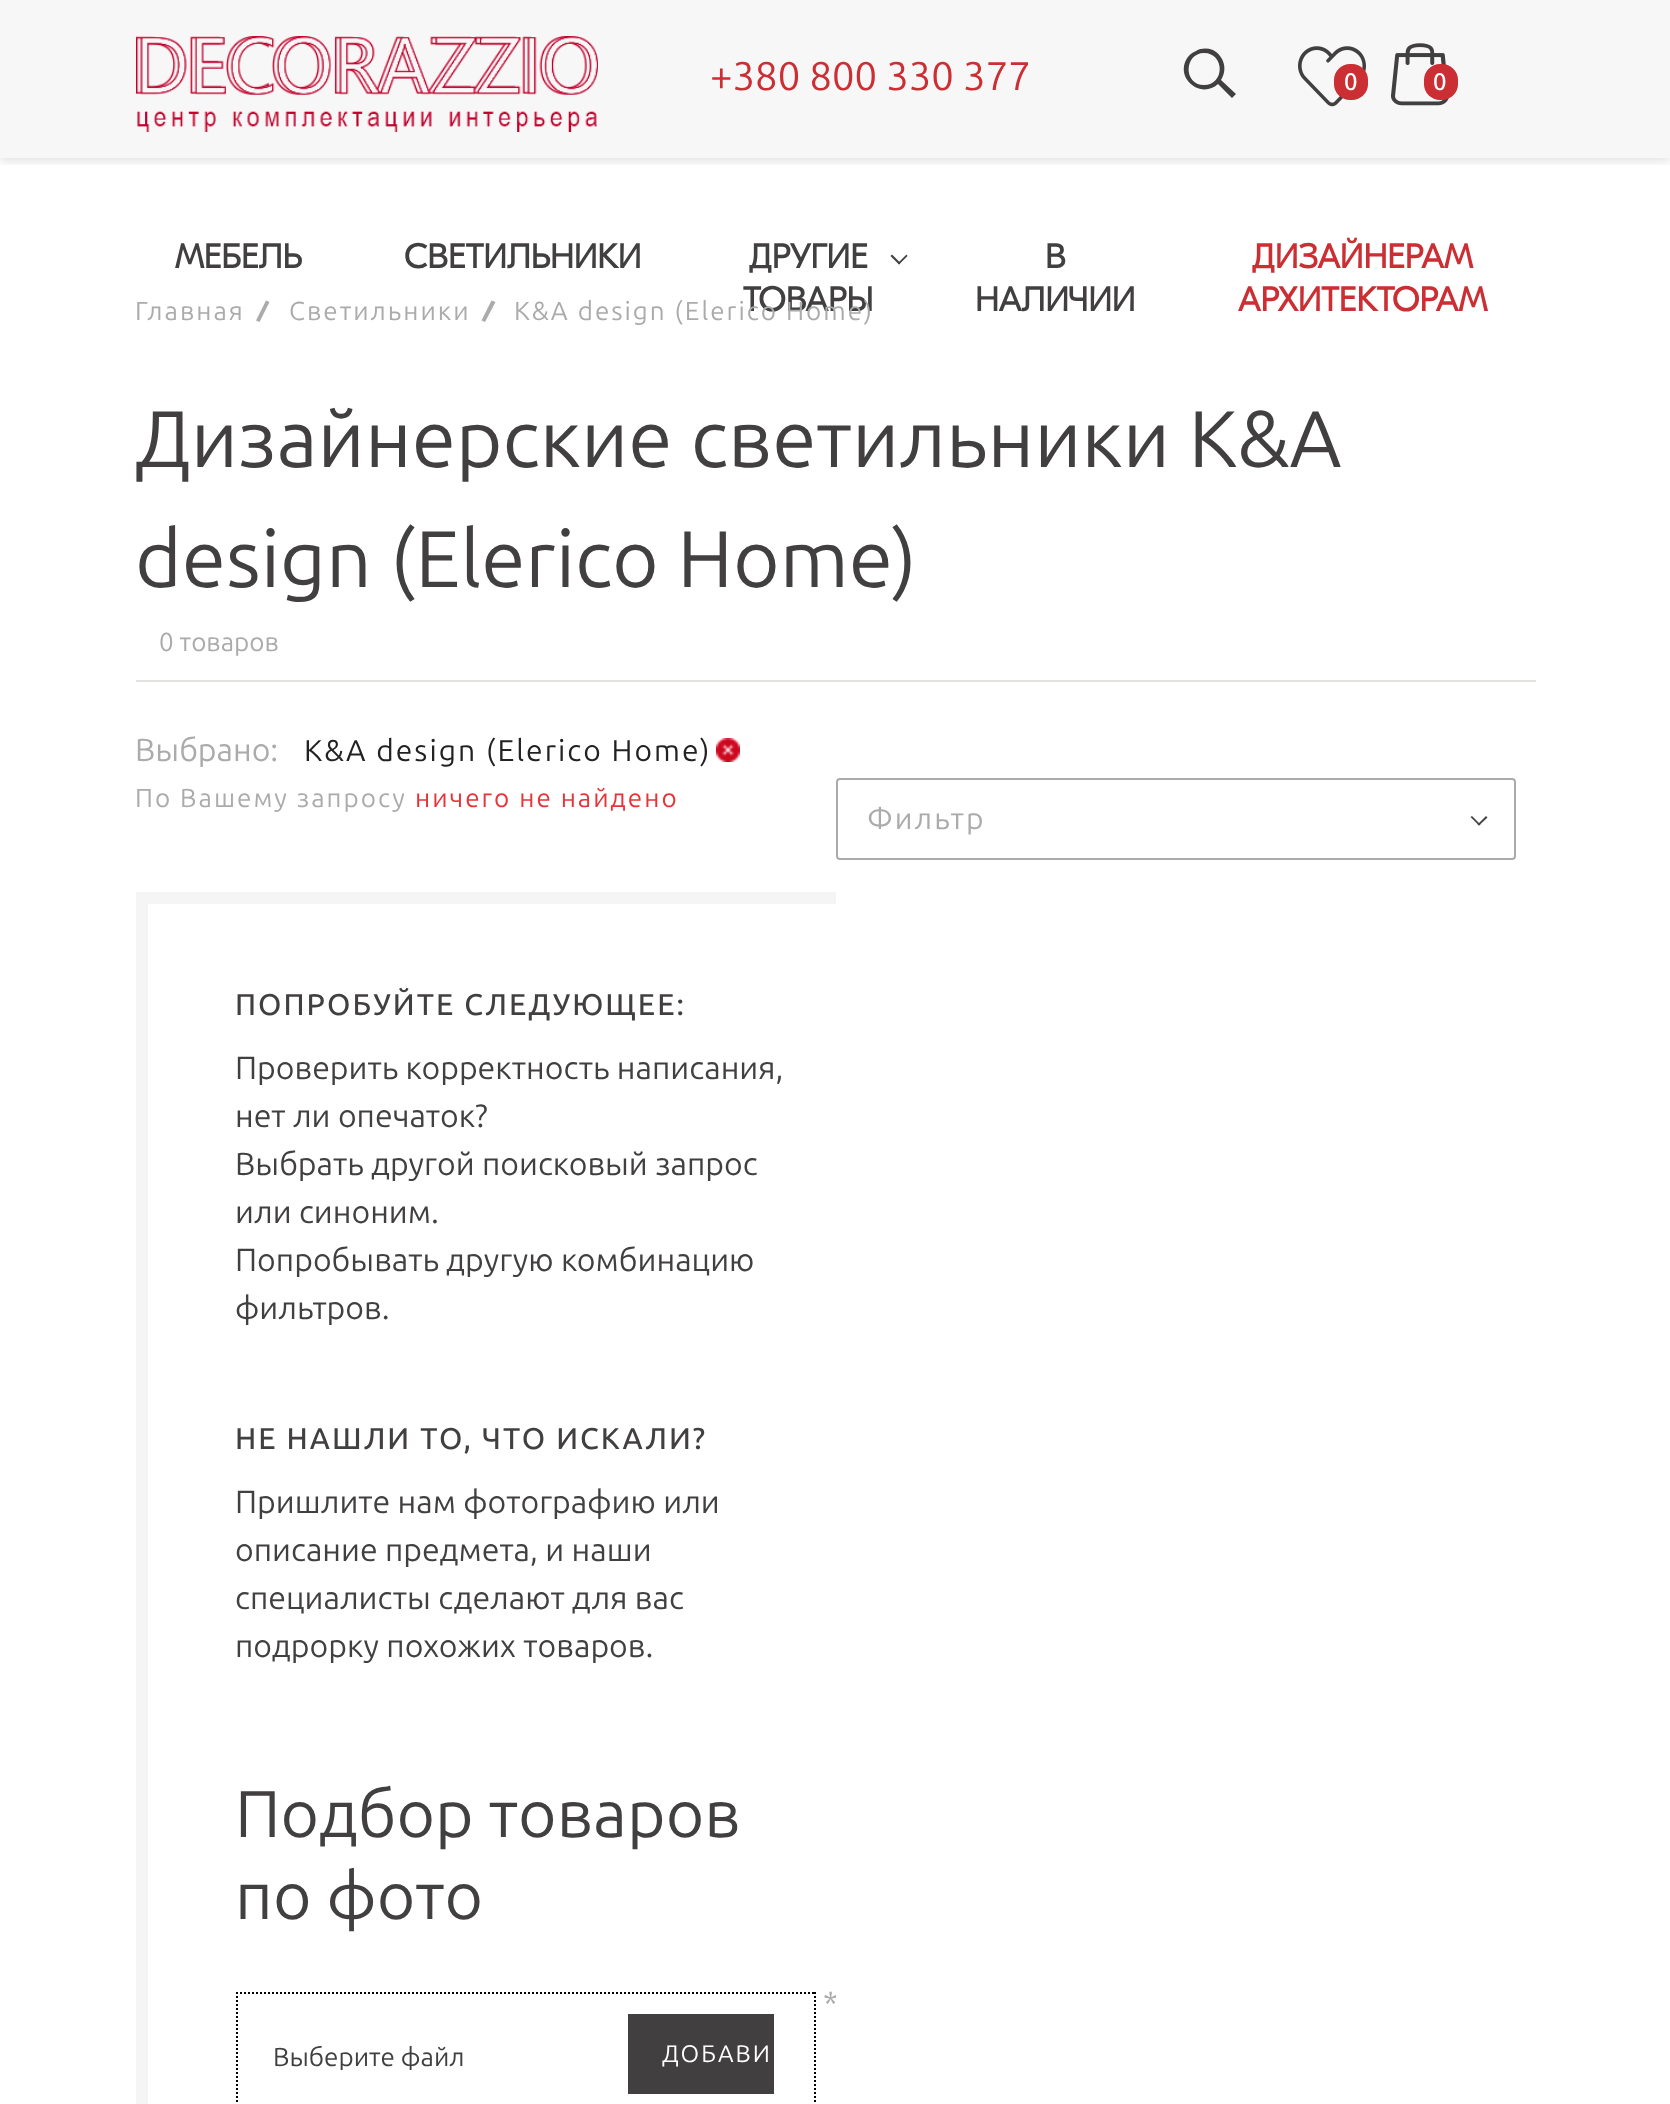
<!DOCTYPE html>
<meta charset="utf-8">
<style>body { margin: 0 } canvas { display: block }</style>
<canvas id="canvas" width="1670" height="2104"></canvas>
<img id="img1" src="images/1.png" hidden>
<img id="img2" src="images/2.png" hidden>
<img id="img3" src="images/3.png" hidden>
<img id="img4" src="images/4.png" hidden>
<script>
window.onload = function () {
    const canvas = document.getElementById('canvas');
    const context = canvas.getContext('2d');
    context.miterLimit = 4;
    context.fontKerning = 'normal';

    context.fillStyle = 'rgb(255, 255, 255)';
    context.fillRect(0, 0, 1670, 2104);
    context.fillStyle = 'rgb(247, 247, 247)';
    context.fillRect(0, 0, 1670, 158);
    context.save();
    context.beginPath();
    context.rect(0, 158, 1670, 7);
    context.clip();
    context.fillStyle = 'rgba(0, 0, 0, 0.1)';
    context.filter = 'blur(4px)';
    context.beginPath();
    context.rect(0, 4, 1670, 158);
    context.fill();
    context.filter = 'none';
    context.restore();
    context.drawImage(document.getElementById('img1'), 136, 36, 462, 96);
    context.fillStyle = 'rgb(65, 63, 63)';
    context.beginPath();
    context.moveTo(1236, 94);
    context.lineTo(1221, 80);
    context.bezierCurveTo(1228, 69, 1224, 56, 1213, 50);
    context.bezierCurveTo(1207, 48, 1201, 48, 1196, 51);
    context.bezierCurveTo(1191, 53, 1188, 56, 1186, 60);
    context.bezierCurveTo(1176, 80, 1202, 99, 1218, 84);
    context.lineTo(1232, 98);
    context.closePath();
    context.moveTo(1204, 85);
    context.bezierCurveTo(1183, 85, 1184, 53, 1204, 53);
    context.bezierCurveTo(1225, 53, 1225, 85, 1204, 85);
    context.closePath();
    context.fill();
    context.drawImage(document.getElementById('img2'), 1298, 46, 68, 61);
    context.fillStyle = 'rgb(203, 46, 51)';
    context.beginPath();
    context.roundRect(1334, 64, 34, 36, 16);
    context.fill();
    context.drawImage(document.getElementById('img3'), 1391, 43, 58, 63);
    context.beginPath();
    context.roundRect(1424, 64, 34, 36, 16);
    context.fill();
    context.fillStyle = 'rgb(65, 63, 63)';
    context.beginPath();
    context.moveTo(898, 263);
    context.lineTo(906.5, 254.5);
    context.lineTo(907.5, 256);
    context.lineTo(899, 264.5);
    context.closePath();
    context.fill();
    context.beginPath();
    context.moveTo(890.5, 256);
    context.lineTo(892, 254.5);
    context.lineTo(900.5, 263);
    context.lineTo(899, 264.5);
    context.closePath();
    context.fill();
    context.fillStyle = 'rgb(172, 171, 171)';
    context.beginPath();
    context.moveTo(266, 300.5);
    context.lineTo(269.5, 302);
    context.lineTo(259.5, 322);
    context.lineTo(256, 320.5);
    context.closePath();
    context.fill();
    context.beginPath();
    context.moveTo(491.5, 300.5);
    context.lineTo(495.5, 302);
    context.lineTo(485, 322);
    context.lineTo(481.5, 320.5);
    context.closePath();
    context.fill();
    context.fillStyle = 'rgb(227, 226, 223)';
    context.fillRect(136, 680, 1400, 2);
    context.drawImage(document.getElementById('img4'), 716, 738, 24, 24);
    context.save();
    context.beginPath();
    context.rect(136, 778, 700, 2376);
    context.clip();
    context.strokeStyle = 'rgb(245, 245, 245)';
    context.lineWidth = 12;
    context.strokeRect(142, 898, 768, 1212);
    context.restore();
    context.beginPath();
    context.moveTo(236, 1993);
    context.lineTo(816, 1993);
    context.strokeStyle = 'rgb(0, 0, 0)';
    context.lineWidth = 2;
    context.setLineDash([2, 2]);
    context.stroke();
    context.beginPath();
    context.moveTo(815, 1992);
    context.lineTo(815, 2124);
    context.stroke();
    context.beginPath();
    context.moveTo(237, 1992);
    context.lineTo(237, 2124);
    context.stroke();
    context.fillStyle = 'rgb(65, 63, 63)';
    context.fillRect(628, 2014, 146, 80);
    context.beginPath();
    context.roundRect(837, 779, 678, 80, 3);
    context.strokeStyle = 'rgb(172, 171, 171)';
    context.setLineDash([]);
    context.stroke();
    context.fillStyle = 'rgb(69, 68, 68)';
    context.beginPath();
    context.moveTo(1477.5, 824.5);
    context.lineTo(1486, 816);
    context.lineTo(1487.5, 817.5);
    context.lineTo(1479, 825.5);
    context.closePath();
    context.fill();
    context.beginPath();
    context.moveTo(1470.5, 817);
    context.lineTo(1472, 816);
    context.lineTo(1480.5, 824.5);
    context.lineTo(1479, 825.5);
    context.closePath();
    context.fill();
    context.font = '40px Ubuntu';
    context.fillStyle = 'rgb(203, 46, 51)';
    context.fillText('+380 800 330 377', 710, 90);
    context.font = '500 24px Ubuntu';
    context.fillStyle = 'rgb(255, 255, 255)';
    context.fillText('0', 1344, 90);
    context.fillText('0', 1433, 90);
    context.font = 'bold 34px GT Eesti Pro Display';
    context.fillStyle = 'rgb(65, 63, 63)';
    context.fillText('МЕБЕЛЬ', 175, 268);
    context.fillText('СВЕТИЛЬНИКИ', 404, 268);
    context.fillText('ДРУГИЕ', 749, 268);
    context.fillText('ТОВАРЫ', 743, 311);
    context.fillText('В', 1045, 268);
    context.fillText('НАЛИЧИИ', 975, 311);
    context.fillStyle = 'rgb(203, 46, 51)';
    context.fillText('ДИЗАЙНЕРАМ', 1252, 268);
    context.fillText('АРХИТЕКТОРАМ', 1238, 311);
    context.letterSpacing = '2px';
    context.font = '26px Ubuntu';
    context.fillStyle = 'rgb(172, 171, 171)';
    context.fillText('Главная', 135, 320);
    context.fillText('Светильники', 289, 320);
    context.fillText('K&A design (Elerico Home)', 514, 320);
    context.letterSpacing = '0px';
    context.font = '80px Ubuntu';
    context.fillStyle = 'rgb(65, 63, 63)';
    context.fillText('Дизайнерские светильники K&A', 135, 467);
    context.fillText('design (Elerico Home)', 135, 587);
    context.font = '26px Ubuntu';
    context.fillStyle = 'rgb(172, 171, 171)';
    context.fillText('0 товаров', 159, 651);
    context.font = '32px Ubuntu';
    context.fillText('Выбрано:', 135, 761);
    context.letterSpacing = '2px';
    context.font = '30px Ubuntu';
    context.fillStyle = 'rgb(34, 34, 34)';
    context.fillText('K&A design (Elerico Home)', 304, 761);
    context.font = '26px Ubuntu';
    context.fillStyle = 'rgb(172, 171, 171)';
    context.fillText('По Вашему запросу', 135, 807);
    context.fillStyle = 'rgb(230, 52, 58)';
    context.fillText('ничего не найдено', 415, 807);
    context.font = '500 30px Ubuntu';
    context.fillStyle = 'rgb(65, 63, 63)';
    context.fillText('ПОПРОБУЙТЕ СЛЕДУЮЩЕЕ:', 235, 1015);
    context.letterSpacing = '0px';
    context.font = '32px Ubuntu';
    context.fillText('Проверить корректность написания,', 235, 1079);
    context.fillText('нет ли опечаток?', 235, 1127);
    context.fillText('Выбрать другой поисковый запрос', 235, 1175);
    context.fillText('или синоним.', 235, 1223);
    context.fillText('Попробывать другую комбинацию', 235, 1271);
    context.fillText('фильтров.', 235, 1319);
    context.letterSpacing = '2px';
    context.font = '500 30px Ubuntu';
    context.fillText('НЕ НАШЛИ ТО, ЧТО ИСКАЛИ?', 235, 1449);
    context.letterSpacing = '0px';
    context.font = '32px Ubuntu';
    context.fillText('Пришлите нам фотографию или', 235, 1513);
    context.fillText('описание предмета, и наши', 235, 1561);
    context.fillText('специалисты сделают для вас', 235, 1609);
    context.fillText('подрорку похожих товаров.', 235, 1657);
    context.font = '66px Ubuntu';
    context.fillText('Подбор товаров', 235, 1837);
    context.fillText('по фото', 235, 1919);
    context.save();
    context.beginPath();
    context.rect(136, 778, 700, 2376);
    context.clip();
    context.font = '32px Ubuntu';
    context.fillStyle = 'rgb(172, 171, 171)';
    context.fillText('*', 823, 2014);
    context.restore();
    context.save();
    context.beginPath();
    context.rect(258, 2014, 372, 56);
    context.clip();
    context.font = '26px Ubuntu';
    context.fillText('Выберите файл', 273, 2066);
    context.restore();
    context.letterSpacing = '2px';
    context.font = '24px Ubuntu';
    context.fillStyle = 'rgb(255, 255, 255)';
    context.fillText('ДОБАВИ', 662, 2062);
    context.font = '30px Ubuntu';
    context.fillStyle = 'rgb(172, 171, 171)';
    context.fillText('Фильтр', 867, 829);
};
</script>
